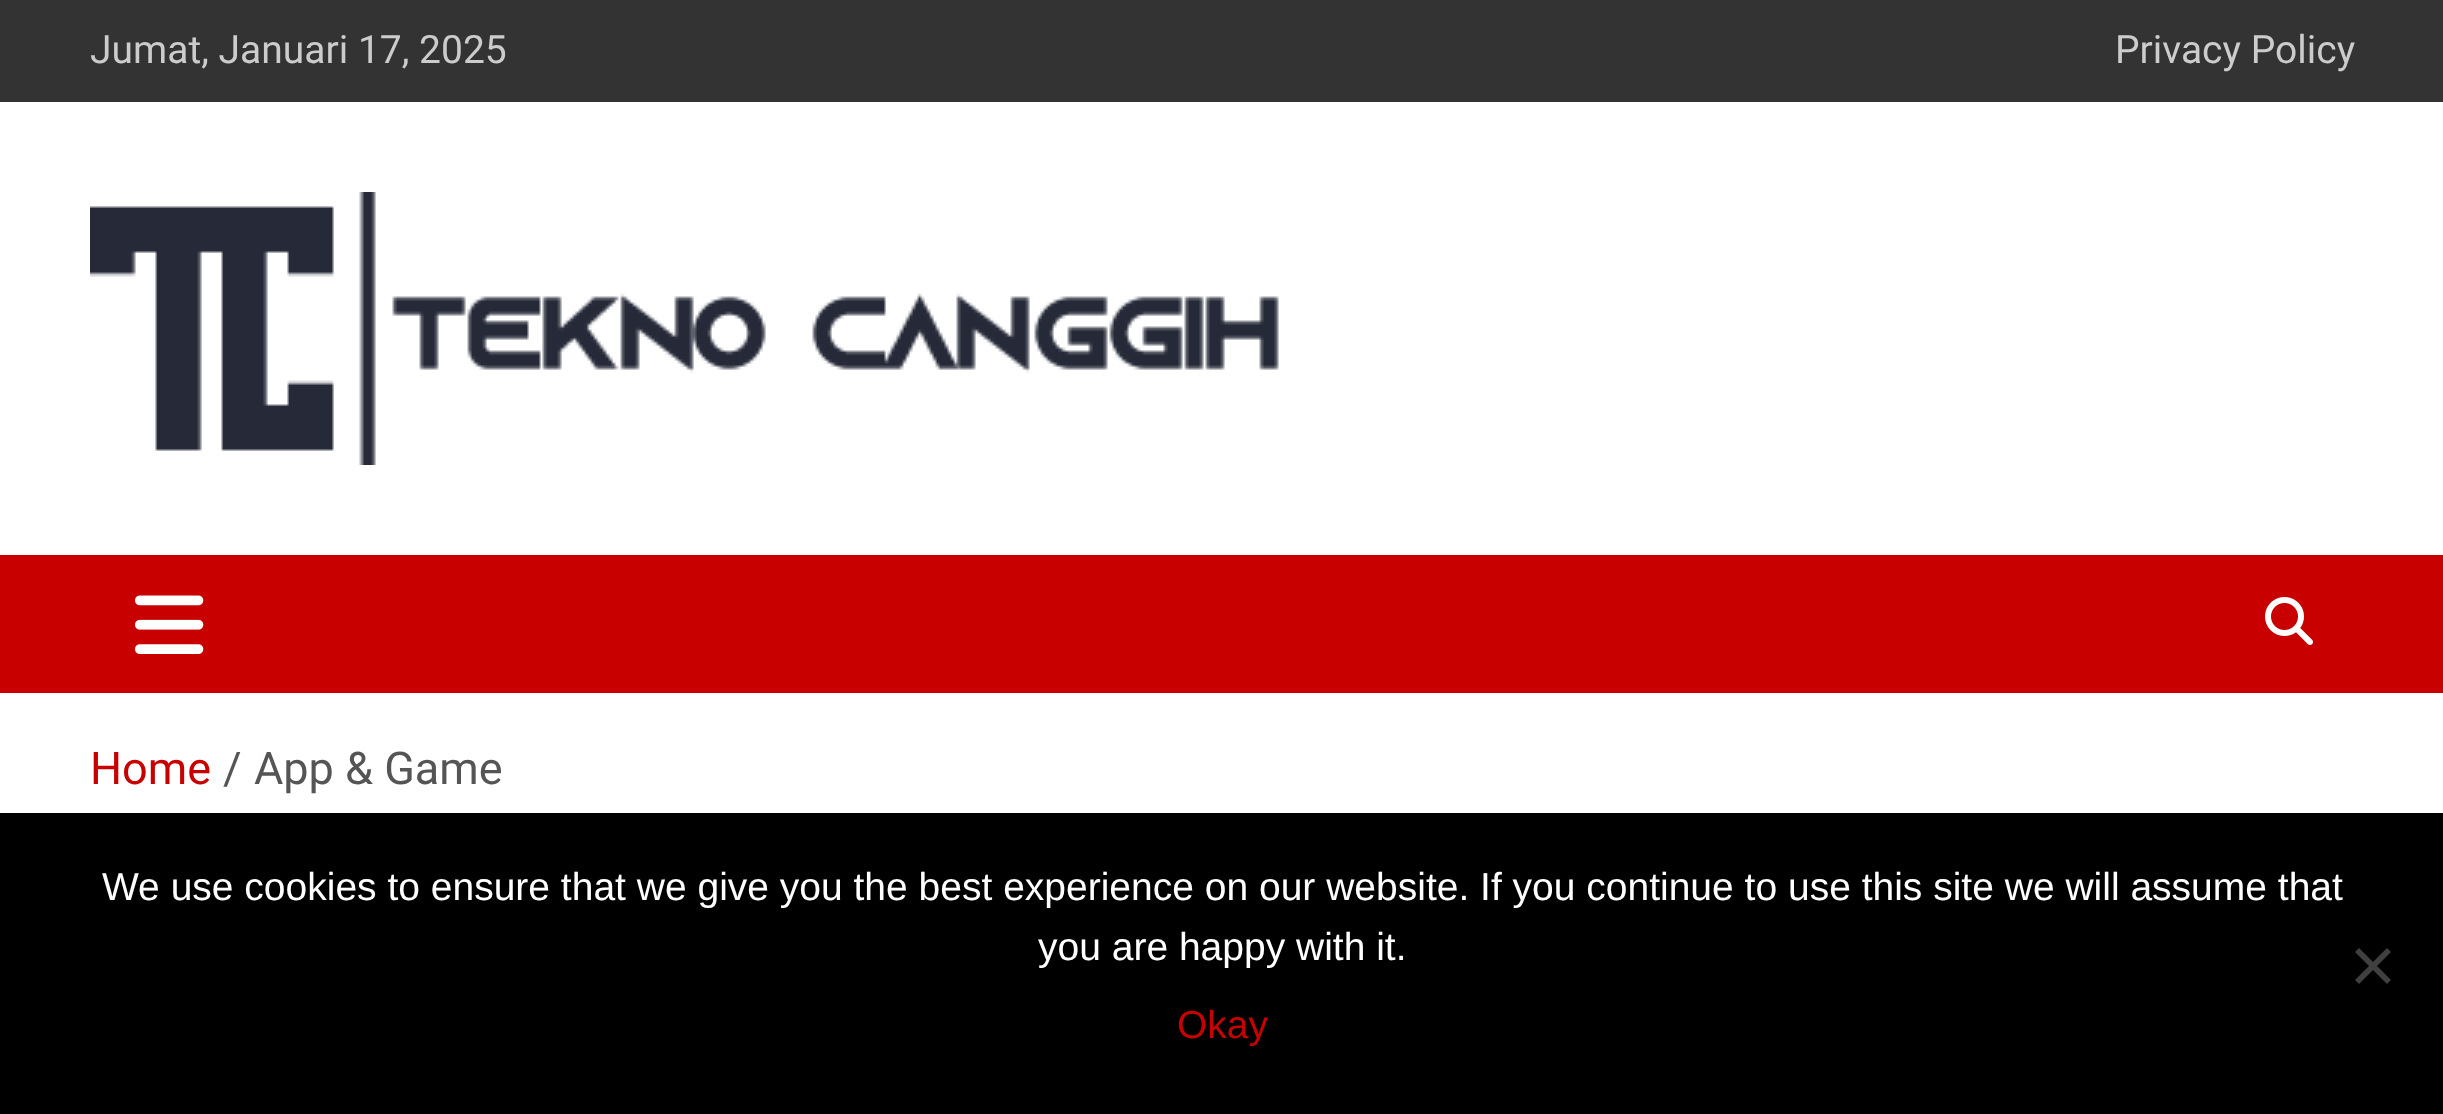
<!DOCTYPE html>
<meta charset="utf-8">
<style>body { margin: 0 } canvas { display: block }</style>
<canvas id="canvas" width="2443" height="1114"></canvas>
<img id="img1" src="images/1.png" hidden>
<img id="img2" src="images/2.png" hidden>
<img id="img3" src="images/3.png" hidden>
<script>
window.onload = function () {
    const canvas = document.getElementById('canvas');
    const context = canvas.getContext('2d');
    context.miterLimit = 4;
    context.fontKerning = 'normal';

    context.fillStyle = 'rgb(255, 255, 255)';
    context.fillRect(0, 0, 2443, 1114);
    context.fillStyle = 'rgb(51, 51, 51)';
    context.fillRect(0, 0, 2443, 102);
    context.drawImage(document.getElementById('img1'), 90, 192, 1189, 273);
    context.fillStyle = 'rgb(200, 0, 0)';
    context.fillRect(0, 555, 2443, 138);
    context.drawImage(document.getElementById('img2'), 135, 595, 69, 59);
    context.drawImage(document.getElementById('img3'), 2265, 597, 48, 48);
    context.fillStyle = 'rgb(0, 0, 0)';
    context.fillRect(0, 813, 2443, 301);
    context.fillStyle = 'rgb(64, 64, 64)';
    context.beginPath();
    context.moveTo(2387, 948);
    context.lineTo(2391, 952);
    context.lineTo(2359, 984);
    context.lineTo(2355, 980);
    context.closePath();
    context.fill();
    context.beginPath();
    context.moveTo(2355, 952);
    context.lineTo(2359, 948);
    context.lineTo(2391, 980);
    context.lineTo(2387, 984);
    context.closePath();
    context.fill();
    context.font = '39px Roboto';
    context.fillStyle = 'rgb(204, 204, 204)';
    context.fillText('Jumat, Januari 17, 2025', 90, 63);
    context.fillText('Privacy Policy', 2115, 63);
    context.font = '45px Roboto';
    context.fillStyle = 'rgb(200, 0, 0)';
    context.fillText('Home', 90, 784);
    context.fillStyle = 'rgb(85, 85, 85)';
    context.fillText('/', 223, 784);
    context.fillText('App & Game', 254, 784);
    context.font = '39px Liberation Sans';
    context.fillStyle = 'rgb(255, 255, 255)';
    context.fillText('We use cookies to ensure that we give you the best experience on our website. If you continue to use this site we will assume that', 102, 900);
    context.fillText('you are happy with it.', 1038, 960);
    context.fillStyle = 'rgb(200, 0, 0)';
    context.fillText('Okay', 1177, 1038);
};
</script>
